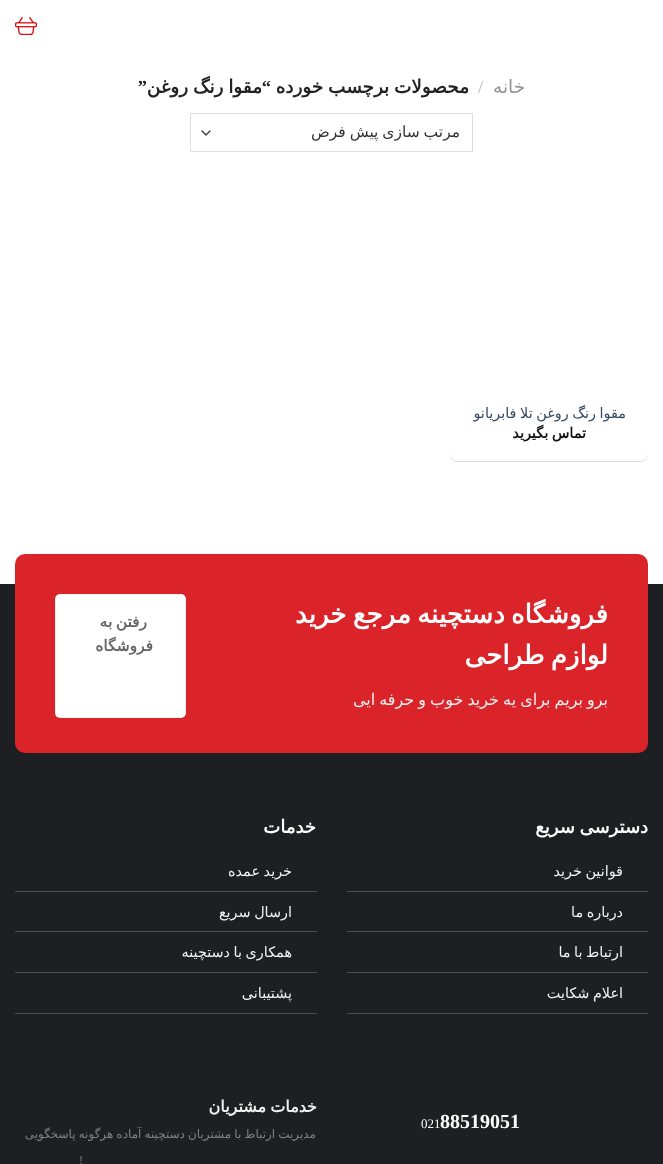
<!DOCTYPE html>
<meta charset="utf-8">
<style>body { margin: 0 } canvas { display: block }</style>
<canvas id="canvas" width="663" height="1164"></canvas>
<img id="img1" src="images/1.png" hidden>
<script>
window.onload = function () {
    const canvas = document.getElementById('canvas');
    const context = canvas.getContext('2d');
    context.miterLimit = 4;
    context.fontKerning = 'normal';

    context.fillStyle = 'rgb(255, 255, 255)';
    context.fillRect(0, 0, 663, 1164);
    context.drawImage(document.getElementById('img1'), 15, 17, 22, 18);
    context.beginPath();
    context.moveTo(202, 131);
    context.lineTo(206, 135);
    context.lineTo(210, 131);
    context.strokeStyle = 'rgb(51, 51, 51)';
    context.lineWidth = 1.3;
    context.lineCap = 'round';
    context.lineJoin = 'round';
    context.stroke();
    context.strokeStyle = 'rgb(221, 221, 221)';
    context.lineWidth = 1;
    context.lineJoin = 'miter';
    context.strokeRect(190.5, 113.5, 282, 38);
    context.fillStyle = 'rgba(28, 37, 64, 0.16)';
    context.filter = 'blur(0.5px)';
    context.beginPath();
    context.roundRect(450, 193, 198, 269, 7);
    context.fill();
    context.filter = 'none';
    context.fillStyle = 'rgb(255, 255, 255)';
    context.beginPath();
    context.roundRect(450, 192, 198, 269, 7);
    context.fill();
    context.fillStyle = 'rgb(29, 31, 34)';
    context.fillRect(0, 584, 663, 580);
    context.fillStyle = 'rgb(218, 36, 41)';
    context.beginPath();
    context.roundRect(15, 554, 633, 199, 10);
    context.fill();
    context.fillStyle = 'rgb(255, 255, 255)';
    context.beginPath();
    context.roundRect(55, 594, 131, 124, 5);
    context.fill();
    context.strokeStyle = 'rgba(0, 0, 0, 0.05)';
    context.strokeRect(55.5, 594.5, 130, 123);
    context.fillStyle = 'rgb(74, 76, 78)';
    context.fillRect(347, 891, 301, 1);
    context.fillRect(347, 931, 301, 1);
    context.fillRect(347, 972, 301, 1);
    context.fillRect(347, 1013, 301, 1);
    context.fillRect(15, 891, 302, 1);
    context.fillRect(15, 931, 302, 1);
    context.fillRect(15, 972, 302, 1);
    context.fillRect(15, 1013, 302, 1);
    context.direction = 'rtl';
    context.font = '18.4px DejaVu Sans';
    context.fillStyle = 'rgb(148, 148, 148)';
    context.fillText('خانه', 525, 93);
    context.direction = 'ltr';
    context.font = '18.4px Liberation Serif';
    context.fillStyle = 'rgb(178, 178, 178)';
    context.fillText('/', 478, 93);
    context.wordSpacing = '-1px';
    context.direction = 'rtl';
    context.font = 'bold 18.4px DejaVu Sans';
    context.fillStyle = 'rgb(34, 34, 34)';
    context.fillText('محصولات برچسب خورده', 469, 93);
    context.fillText('مقوا رنگ روغن', 262, 93);
    context.wordSpacing = '0px';
    context.font = 'bold 18.4px Liberation Serif';
    context.fillText('“', 271, 93);
    context.fillText('”', 147, 93);
    context.save();
    context.beginPath();
    context.rect(213, 120, 247, 25);
    context.clip();
    context.wordSpacing = '-1px';
    context.font = '15.5px DejaVu Sans';
    context.fillStyle = 'rgb(51, 51, 51)';
    context.fillText('مرتب سازی پیش فرض', 460, 137);
    context.restore();
    context.wordSpacing = '-1px';
    context.font = '14.4px DejaVu Sans';
    context.fillStyle = 'rgb(51, 72, 98)';
    context.fillText('مقوا رنگ روغن تلا فابریانو', 626, 418);
    context.font = 'bold 14.4px DejaVu Sans';
    context.fillStyle = 'rgb(17, 17, 17)';
    context.fillText('تماس بگیرید', 586, 438);
    context.wordSpacing = '-2px';
    context.font = 'bold 26px DejaVu Sans';
    context.fillStyle = 'rgb(255, 255, 255)';
    context.fillText('فروشگاه دستچینه مرجع خرید', 608, 623);
    context.fillText('لوازم طراحی', 608, 664);
    context.wordSpacing = '-1px';
    context.font = '16px DejaVu Sans';
    context.fillStyle = 'rgb(241, 241, 241)';
    context.fillText('برو بریم برای یه خرید خوب و حرفه ایی', 608, 705);
    context.letterSpacing = '0.5px';
    context.wordSpacing = '-2px';
    context.font = 'bold 15.5px DejaVu Sans';
    context.fillStyle = 'rgb(102, 102, 102)';
    context.fillText('رفتن به', 147, 627);
    context.wordSpacing = '0px';
    context.fillText('فروشگاه', 153, 651);
    context.letterSpacing = '0px';
    context.wordSpacing = '-1px';
    context.font = 'bold 18px DejaVu Sans';
    context.fillStyle = 'rgb(255, 255, 255)';
    context.fillText('دسترسی سریع', 648, 833);
    context.font = '14.4px DejaVu Sans';
    context.fillStyle = 'rgb(241, 241, 241)';
    context.fillText('قوانین خرید', 623, 876);
    context.fillText('درباره ما', 623, 917);
    context.fillText('ارتباط با ما', 623, 957);
    context.fillText('اعلام شکایت', 623, 998);
    context.wordSpacing = '0px';
    context.font = 'bold 18px DejaVu Sans';
    context.fillStyle = 'rgb(255, 255, 255)';
    context.fillText('خدمات', 316, 833);
    context.wordSpacing = '-1px';
    context.font = '14.4px DejaVu Sans';
    context.fillStyle = 'rgb(241, 241, 241)';
    context.fillText('خرید عمده', 292, 876);
    context.fillText('ارسال سریع', 292, 917);
    context.fillText('همکاری با دستچینه', 292, 957);
    context.wordSpacing = '0px';
    context.fillText('پشتیبانی', 292, 998);
    context.direction = 'ltr';
    context.font = 'bold 20px Liberation Serif';
    context.fillStyle = 'rgb(255, 255, 255)';
    context.fillText('88519051', 440, 1128);
    context.font = '13px Liberation Serif';
    context.fillText('021', 421, 1128);
    context.wordSpacing = '-1px';
    context.direction = 'rtl';
    context.font = 'bold 16px DejaVu Sans';
    context.fillStyle = 'rgb(241, 241, 241)';
    context.fillText('خدمات مشتریان', 317, 1112);
    context.wordSpacing = '-0.75px';
    context.font = '12px DejaVu Sans';
    context.fillStyle = 'rgb(124, 129, 138)';
    context.fillText('مدیریت ارتباط با مشتریان دستچینه آماده هرگونه پاسخگویی', 316, 1138);
    context.wordSpacing = '0px';
    context.font = '12px Liberation Serif';
    context.fillText('!', 83, 1164);
};
</script>
